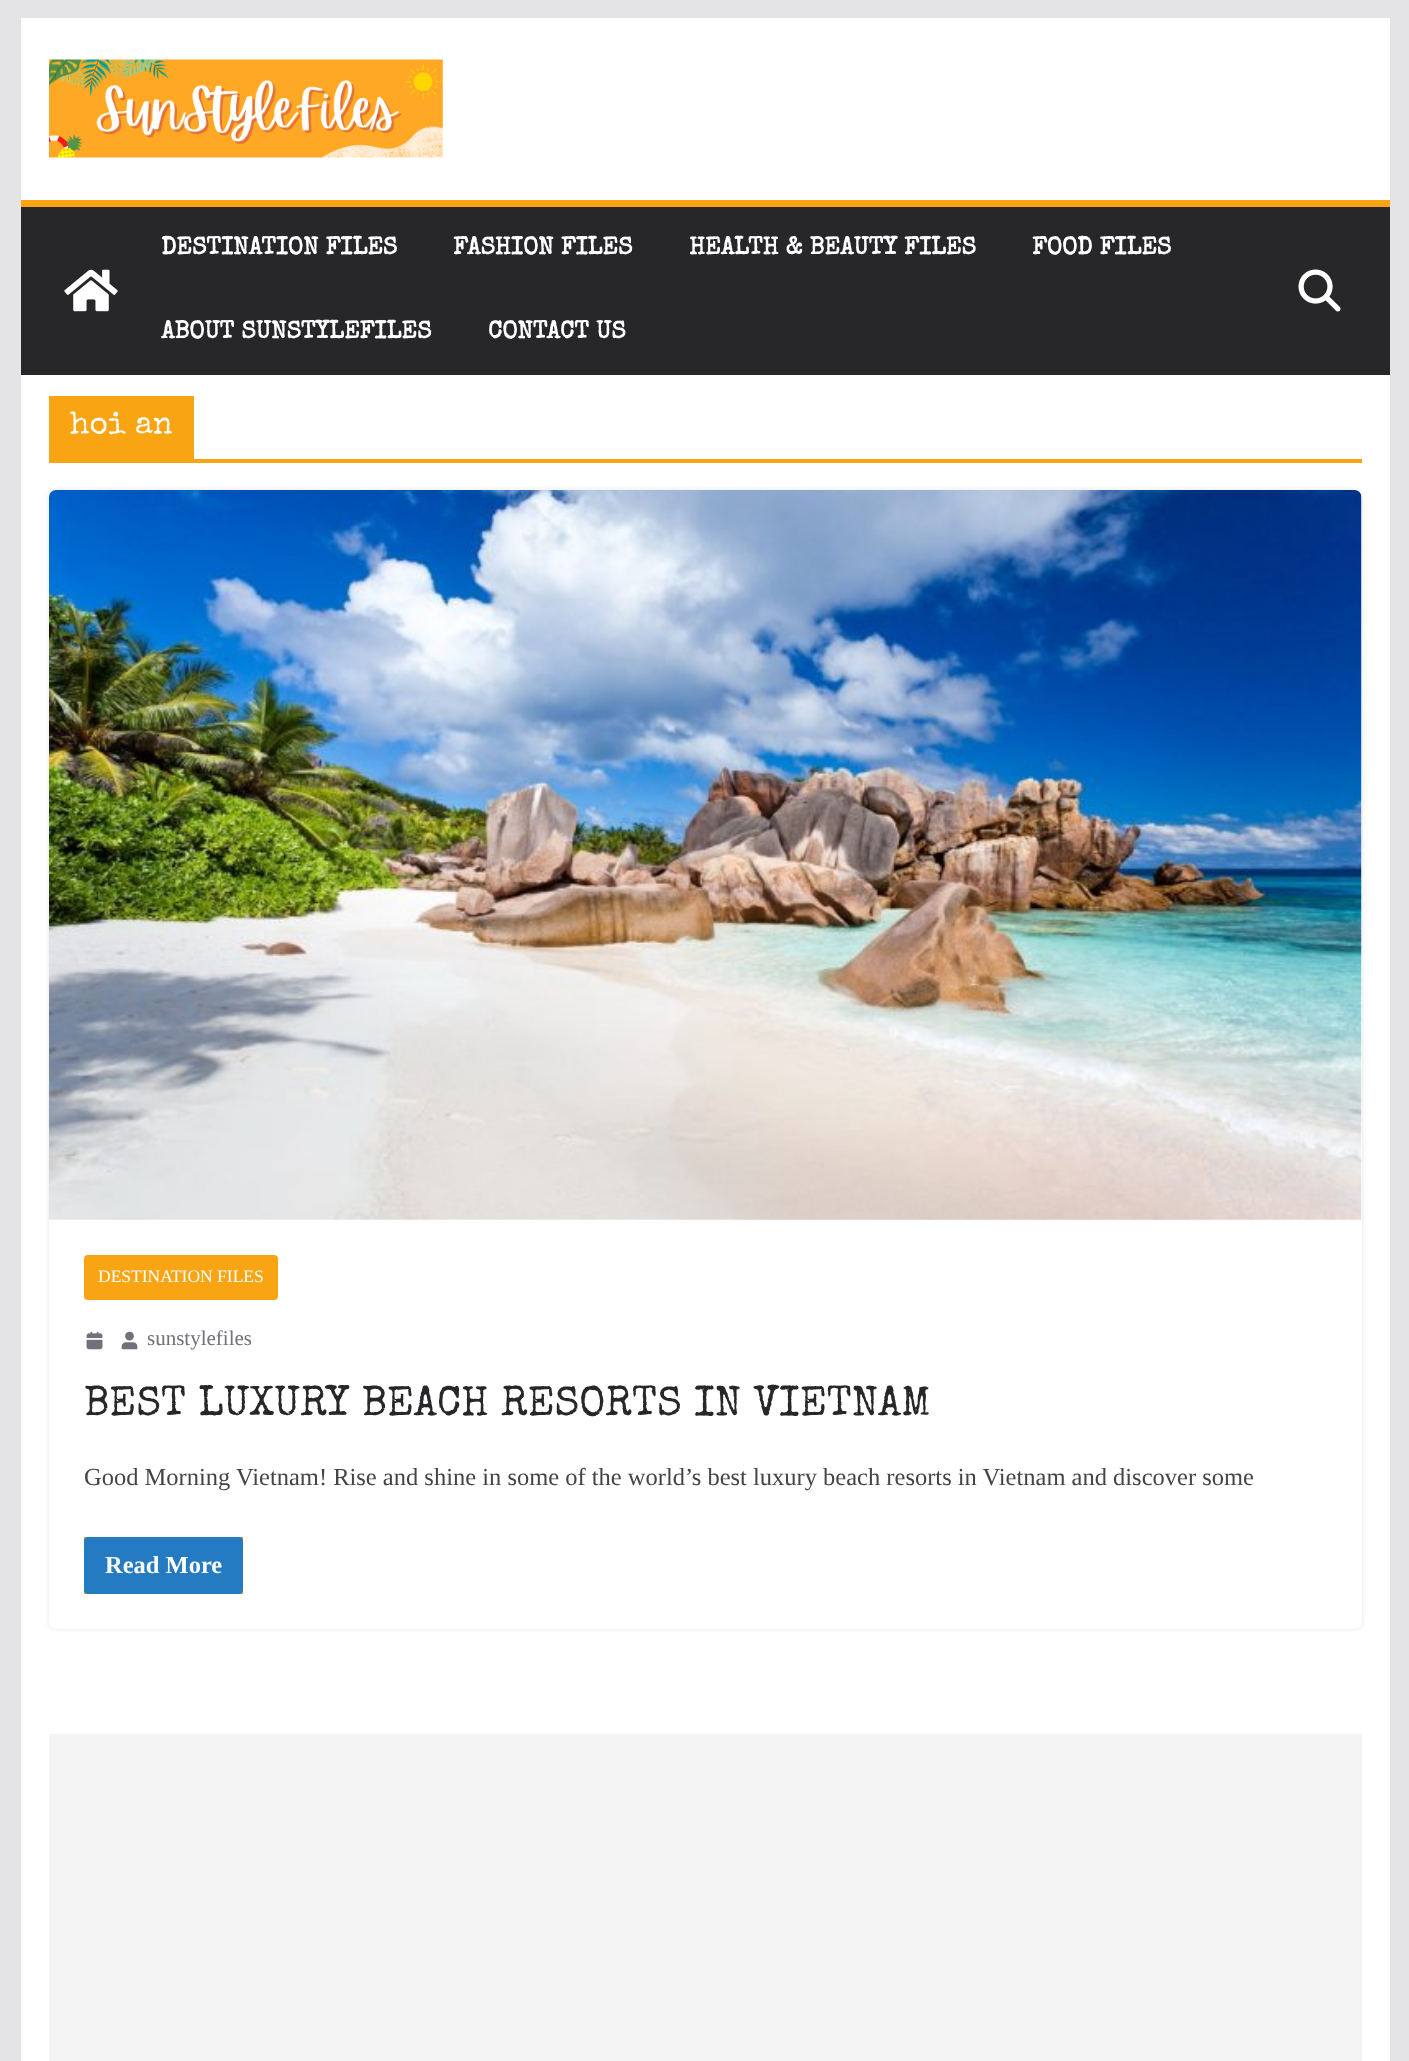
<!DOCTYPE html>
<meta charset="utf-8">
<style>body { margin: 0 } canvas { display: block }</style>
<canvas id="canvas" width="1409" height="2061"></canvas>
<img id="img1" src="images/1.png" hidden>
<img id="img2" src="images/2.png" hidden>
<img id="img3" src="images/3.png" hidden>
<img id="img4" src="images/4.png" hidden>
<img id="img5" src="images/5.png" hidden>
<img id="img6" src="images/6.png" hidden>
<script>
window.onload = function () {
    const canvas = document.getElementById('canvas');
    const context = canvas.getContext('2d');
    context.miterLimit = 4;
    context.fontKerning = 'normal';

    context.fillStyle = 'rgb(228, 228, 231)';
    context.fillRect(0, 0, 1409, 2061);
    context.fillStyle = 'rgb(255, 255, 255)';
    context.fillRect(21, 18, 1369, 182);
    context.drawImage(document.getElementById('img1'), 49, 59, 394, 99);
    context.fillStyle = 'rgb(39, 39, 42)';
    context.fillRect(21, 207, 1369, 168);
    context.fillStyle = 'rgb(249, 165, 19)';
    context.fillRect(21, 200, 1369, 7);
    context.drawImage(document.getElementById('img2'), 64, 269, 54, 43);
    context.drawImage(document.getElementById('img3'), 1298, 269, 43, 43);
    context.fillStyle = 'rgb(255, 255, 255)';
    context.fillRect(21, 375, 1369, 1686);
    context.fillStyle = 'rgb(249, 165, 19)';
    context.fillRect(49, 459, 1313, 4);
    context.fillRect(49, 396, 145, 63);
    context.save();
    context.beginPath();
    context.moveTo(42, 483);
    context.lineTo(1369, 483);
    context.lineTo(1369, 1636);
    context.lineTo(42, 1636);
    context.closePath();
    context.moveTo(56, 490);
    context.lineTo(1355, 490);
    context.bezierCurveTo(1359, 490, 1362, 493, 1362, 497);
    context.lineTo(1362, 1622);
    context.bezierCurveTo(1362, 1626, 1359, 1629, 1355, 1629);
    context.lineTo(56, 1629);
    context.bezierCurveTo(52, 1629, 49, 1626, 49, 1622);
    context.lineTo(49, 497);
    context.bezierCurveTo(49, 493, 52, 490, 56, 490);
    context.closePath();
    context.clip('evenodd');
    context.fillStyle = 'rgb(228, 228, 231)';
    context.filter = 'blur(2px)';
    context.beginPath();
    context.roundRect(49, 490, 1313, 1139, 7);
    context.fill();
    context.filter = 'none';
    context.restore();
    context.drawImage(document.getElementById('img4'), 49, 490, 1313, 730);
    context.beginPath();
    context.roundRect(84, 1255, 194, 45, 4);
    context.fill();
    context.drawImage(document.getElementById('img5'), 86, 1331, 17, 19);
    context.drawImage(document.getElementById('img6'), 121, 1331, 17, 19);
    context.fillRect(84, 1537, 159, 57);
    context.fillStyle = 'rgb(37, 123, 193)';
    context.beginPath();
    context.roundRect(84, 1537, 159, 57, 4);
    context.fill();
    context.fillStyle = 'rgb(244, 244, 245)';
    context.fillRect(49, 1734, 1313, 327);
    context.font = 'bold 24.5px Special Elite';
    context.fillStyle = 'rgb(255, 255, 255)';
    context.fillText('DESTINATION FILES', 161, 254);
    context.fillText('FASHION FILES', 453, 254);
    context.fillText('HEALTH & BEAUTY FILES', 689, 254);
    context.fillText('FOOD FILES', 1032, 254);
    context.fillText('ABOUT SUNSTYLEFILES', 161, 338);
    context.fillText('CONTACT US', 488, 338);
    context.font = '31.5px Special Elite';
    context.fillText('hoi an', 70, 433);
    context.font = '17.5px Liberation Serif';
    context.fillText('DESTINATION FILES', 98, 1282);
    context.font = '21px Liberation Serif';
    context.fillStyle = 'rgb(113, 113, 122)';
    context.fillText('sunstylefiles', 147, 1345);
    context.font = '42px Special Elite';
    context.fillStyle = 'rgb(39, 39, 42)';
    context.fillText('BEST LUXURY BEACH RESORTS IN VIETNAM', 84, 1415);
    context.font = '24.5px Liberation Serif';
    context.fillStyle = 'rgb(68, 68, 68)';
    context.fillText('Good Morning Vietnam! Rise and shine in some of the world’s best luxury beach resorts in Vietnam and discover some', 84, 1485);
    context.font = 'bold 24.5px Liberation Serif';
    context.fillStyle = 'rgb(255, 255, 255)';
    context.fillText('Read More', 105, 1573);
};
</script>
